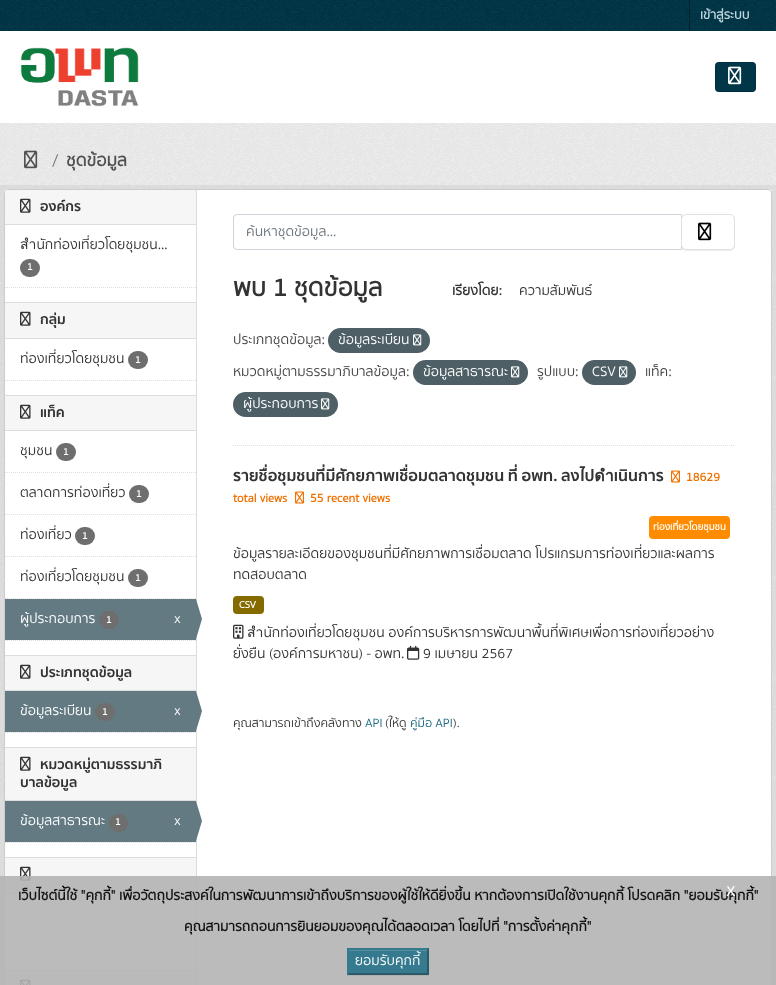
<!DOCTYPE html>
<meta charset="utf-8">
<style>body { margin: 0 } canvas { display: block }</style>
<canvas id="canvas" width="776" height="985"></canvas>
<img id="img1" src="images/1.png" hidden>
<img id="img2" src="images/2.png" hidden>
<img id="img3" src="images/3.png" hidden>
<img id="img4" src="images/4.png" hidden>
<img id="img5" src="images/5.png" hidden>
<img id="img6" src="images/6.png" hidden>
<img id="img7" src="images/7.png" hidden>
<img id="img8" src="images/8.png" hidden>
<img id="img9" src="images/9.png" hidden>
<img id="img10" src="images/10.png" hidden>
<img id="img11" src="images/11.png" hidden>
<img id="img12" src="images/12.png" hidden>
<script>
window.onload = function () {
    const canvas = document.getElementById('canvas');
    const context = canvas.getContext('2d');
    context.miterLimit = 4;
    context.fontKerning = 'normal';

    context.fillStyle = 'rgb(255, 255, 255)';
    context.fillRect(0, 0, 776, 985);
    context.fillStyle = 'rgb(0, 54, 71)';
    context.fillRect(0, 0, 776, 31);
    context.drawImage(document.getElementById('img1'), 0, 0, 776, 31);
    context.fillStyle = 'rgb(0, 35, 46)';
    context.fillRect(689, 0, 1, 31);
    context.drawImage(document.getElementById('img2'), 20, 47, 119, 60);
    context.fillStyle = 'rgb(0, 54, 71)';
    context.beginPath();
    context.roundRect(715, 62, 41, 30, 4);
    context.fill();
    context.beginPath();
    context.roundRect(715.5, 62.5, 40, 29, 3.5);
    context.strokeStyle = 'rgba(0, 0, 0, 0.1)';
    context.stroke();
    context.drawImage(document.getElementById('img3'), 728, 66, 14, 19);
    context.fillStyle = 'rgb(238, 238, 238)';
    context.fillRect(0, 123, 776, 862);
    context.drawImage(document.getElementById('img4'), 0, 123, 776, 862);
    context.drawImage(document.getElementById('img5'), 24, 150, 14, 19);
    context.strokeStyle = 'rgba(0, 0, 0, 0.05)';
    context.lineWidth = 4;
    context.strokeRect(2, 187, 772, 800);
    context.fillStyle = 'rgb(255, 255, 255)';
    context.beginPath();
    context.roundRect(4.5, 189.5, 767, 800, 3.5);
    context.fill();
    context.strokeStyle = 'rgb(204, 204, 204)';
    context.lineWidth = 1;
    context.stroke();
    context.fillStyle = 'rgb(246, 246, 246)';
    context.beginPath();
    context.roundRect(5, 190, 191, 35, [3, 0, 0, 0]);
    context.fill();
    context.fillStyle = 'rgb(221, 221, 221)';
    context.fillRect(5, 224, 191, 1);
    context.drawImage(document.getElementById('img6'), 20, 198, 11, 15);
    context.fillStyle = 'rgb(110, 110, 110)';
    context.beginPath();
    context.roundRect(20, 259, 20, 18, 9);
    context.fill();
    context.beginPath();
    context.moveTo(5, 287.5);
    context.lineTo(196, 287.5);
    context.strokeStyle = 'rgb(221, 221, 221)';
    context.setLineDash([1, 1]);
    context.stroke();
    context.fillStyle = 'rgb(246, 246, 246)';
    context.fillRect(5, 303, 191, 35);
    context.fillStyle = 'rgb(221, 221, 221)';
    context.fillRect(5, 302, 191, 1);
    context.fillRect(5, 338, 191, 1);
    context.drawImage(document.getElementById('img6'), 20, 311, 11, 15);
    context.fillStyle = 'rgb(110, 110, 110)';
    context.beginPath();
    context.roundRect(128, 351, 20, 18, 9);
    context.fill();
    context.beginPath();
    context.moveTo(5, 380.5);
    context.lineTo(196, 380.5);
    context.stroke();
    context.fillStyle = 'rgb(246, 246, 246)';
    context.fillRect(5, 396, 191, 34);
    context.fillStyle = 'rgb(221, 221, 221)';
    context.fillRect(5, 395, 191, 1);
    context.fillRect(5, 430, 191, 1);
    context.drawImage(document.getElementById('img6'), 20, 404, 11, 15);
    context.beginPath();
    context.moveTo(5, 472.5);
    context.lineTo(196, 472.5);
    context.stroke();
    context.fillStyle = 'rgb(110, 110, 110)';
    context.beginPath();
    context.roundRect(56, 443, 20, 18, 9);
    context.fill();
    context.beginPath();
    context.moveTo(5, 514.5);
    context.lineTo(196, 514.5);
    context.stroke();
    context.beginPath();
    context.roundRect(129, 485, 20, 18, 9);
    context.fill();
    context.beginPath();
    context.moveTo(5, 556.5);
    context.lineTo(196, 556.5);
    context.stroke();
    context.beginPath();
    context.roundRect(75, 527, 20, 18, 9);
    context.fill();
    context.beginPath();
    context.moveTo(5, 598.5);
    context.lineTo(196, 598.5);
    context.stroke();
    context.beginPath();
    context.roundRect(128, 569, 20, 18, 9);
    context.fill();
    context.fillStyle = 'rgb(100, 122, 130)';
    context.fillRect(5, 599, 191, 41);
    context.fillStyle = 'rgb(110, 110, 110)';
    context.beginPath();
    context.roundRect(99, 611, 20, 18, 9);
    context.fill();
    context.fillStyle = 'rgb(221, 221, 221)';
    context.fillRect(196, 190, 1, 795);
    context.fillStyle = 'rgb(100, 122, 130)';
    context.beginPath();
    context.moveTo(196, 639);
    context.lineTo(196, 599);
    context.lineTo(202, 619);
    context.closePath();
    context.fill();
    context.beginPath();
    context.moveTo(5, 640.5);
    context.lineTo(196, 640.5);
    context.stroke();
    context.fillStyle = 'rgb(246, 246, 246)';
    context.fillRect(5, 656, 191, 34);
    context.fillStyle = 'rgb(221, 221, 221)';
    context.fillRect(5, 655, 191, 1);
    context.fillRect(5, 690, 191, 1);
    context.drawImage(document.getElementById('img6'), 20, 664, 11, 15);
    context.fillStyle = 'rgb(100, 122, 130)';
    context.fillRect(5, 691, 191, 41);
    context.fillStyle = 'rgb(110, 110, 110)';
    context.beginPath();
    context.roundRect(95, 703, 20, 18, 9);
    context.fill();
    context.fillStyle = 'rgb(100, 122, 130)';
    context.beginPath();
    context.moveTo(196, 731);
    context.lineTo(196, 691);
    context.lineTo(202, 711);
    context.closePath();
    context.fill();
    context.beginPath();
    context.moveTo(5, 732.5);
    context.lineTo(196, 732.5);
    context.stroke();
    context.fillStyle = 'rgb(246, 246, 246)';
    context.fillRect(5, 748, 191, 52);
    context.fillStyle = 'rgb(221, 221, 221)';
    context.fillRect(5, 747, 191, 1);
    context.fillRect(5, 800, 191, 1);
    context.drawImage(document.getElementById('img6'), 20, 756, 11, 15);
    context.fillStyle = 'rgb(100, 122, 130)';
    context.fillRect(5, 801, 191, 41);
    context.fillStyle = 'rgb(110, 110, 110)';
    context.beginPath();
    context.roundRect(109, 814, 19, 18, 9);
    context.fill();
    context.fillStyle = 'rgb(100, 122, 130)';
    context.beginPath();
    context.moveTo(196, 841);
    context.lineTo(196, 801);
    context.lineTo(202, 821);
    context.closePath();
    context.fill();
    context.beginPath();
    context.moveTo(5, 842.5);
    context.lineTo(196, 842.5);
    context.stroke();
    context.fillStyle = 'rgb(246, 246, 246)';
    context.fillRect(5, 858, 191, 35);
    context.fillStyle = 'rgb(221, 221, 221)';
    context.fillRect(5, 857, 191, 1);
    context.fillRect(5, 893, 191, 1);
    context.drawImage(document.getElementById('img6'), 20, 866, 11, 15);
    context.fillStyle = 'rgb(246, 246, 246)';
    context.fillRect(5, 971, 191, 14);
    context.fillStyle = 'rgb(221, 221, 221)';
    context.fillRect(5, 970, 191, 1);
    context.drawImage(document.getElementById('img7'), 20, 979, 11, 6);
    context.beginPath();
    context.moveTo(233, 445.5);
    context.lineTo(735, 445.5);
    context.stroke();
    context.beginPath();
    context.roundRect(233.5, 214.5, 448, 35, [3.5, 0, 0, 3.5]);
    context.strokeStyle = 'rgb(206, 212, 218)';
    context.setLineDash([]);
    context.stroke();
    context.fillStyle = 'rgba(0, 0, 0, 0.07)';
    context.filter = 'blur(0.5px)';
    context.beginPath();
    context.roundRect(681, 215, 54, 36, 5);
    context.fill();
    context.filter = 'none';
    context.fillStyle = 'rgb(255, 255, 255)';
    context.beginPath();
    context.roundRect(681.5, 214.5, 53, 35, 4.5);
    context.fill();
    context.strokeStyle = 'rgb(222, 226, 230)';
    context.stroke();
    context.drawImage(document.getElementById('img8'), 698, 222, 14, 19);
    context.fillStyle = 'rgb(78, 95, 101)';
    context.beginPath();
    context.roundRect(328, 328, 102, 25, 12.5);
    context.fill();
    context.drawImage(document.getElementById('img9'), 413, 334, 9, 12);
    context.beginPath();
    context.roundRect(413, 360, 115, 25, 12.5);
    context.fill();
    context.drawImage(document.getElementById('img9'), 511, 366, 9, 12);
    context.beginPath();
    context.roundRect(582, 360, 54, 25, 12.5);
    context.fill();
    context.drawImage(document.getElementById('img9'), 619, 366, 9, 12);
    context.beginPath();
    context.roundRect(233, 392, 105, 25, 12.5);
    context.fill();
    context.drawImage(document.getElementById('img9'), 321, 398, 9, 12);
    context.drawImage(document.getElementById('img10'), 671, 470, 9, 13);
    context.drawImage(document.getElementById('img10'), 295, 491, 9, 13);
    context.fillStyle = 'rgb(255, 140, 0)';
    context.beginPath();
    context.roundRect(649, 516, 81, 23, 4);
    context.fill();
    context.fillStyle = 'rgb(133, 106, 0)';
    context.beginPath();
    context.roundRect(233, 596, 31, 18, 4);
    context.fill();
    context.drawImage(document.getElementById('img11'), 233, 624, 11, 15);
    context.drawImage(document.getElementById('img12'), 407, 645, 13, 15);
    context.fillStyle = 'rgba(181, 180, 180, 0.9)';
    context.fillRect(0, 876, 776, 109);
    context.fillStyle = 'rgba(26, 26, 26, 0.07)';
    context.filter = 'blur(0.5px)';
    context.beginPath();
    context.rect(347, 949, 82, 27);
    context.fill();
    context.filter = 'none';
    context.fillStyle = 'rgb(54, 122, 143)';
    context.fillRect(347, 948, 82, 27);
    context.fillStyle = 'rgb(84, 142, 160)';
    context.fillRect(349, 950, 78, 1);
    context.fillStyle = 'rgb(44, 89, 104)';
    context.beginPath();
    context.moveTo(429, 948);
    context.lineTo(429, 975);
    context.lineTo(427, 973);
    context.lineTo(427, 950);
    context.closePath();
    context.fill();
    context.beginPath();
    context.moveTo(429, 975);
    context.lineTo(347, 975);
    context.lineTo(349, 973);
    context.lineTo(427, 973);
    context.closePath();
    context.fill();
    context.fillStyle = 'rgb(54, 122, 143)';
    context.beginPath();
    context.moveTo(347, 975);
    context.lineTo(347, 948);
    context.lineTo(349, 950);
    context.lineTo(349, 973);
    context.closePath();
    context.fill();
    context.font = 'bold 13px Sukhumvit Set';
    context.fillStyle = 'rgb(191, 215, 222)';
    context.fillText('เข้าสู่ระบบ', 700, 19);
    context.font = '17.5px Sukhumvit Set';
    context.fillStyle = 'rgb(108, 117, 125)';
    context.fillText('/', 52, 166);
    context.font = 'bold 17.5px Sukhumvit Set';
    context.fillStyle = 'rgb(80, 80, 80)';
    context.fillText('ชุดข้อมูล', 66, 166);
    context.font = 'bold 14px "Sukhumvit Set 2"';
    context.fillStyle = 'rgb(51, 51, 51)';
    context.fillText('องค์กร', 40, 211);
    context.font = '14px Sukhumvit Set';
    context.fillText('สำนักท่องเที่ยวโดยชุมชน...', 20, 249);
    context.font = 'bold 10px Sukhumvit Set';
    context.fillStyle = 'rgb(255, 255, 255)';
    context.fillText('1', 27, 270);
    context.font = 'bold 14px "Sukhumvit Set 2"';
    context.fillStyle = 'rgb(51, 51, 51)';
    context.fillText('กลุ่ม', 40, 324);
    context.font = '14px Sukhumvit Set';
    context.fillText('ท่องเที่ยวโดยชุมชน', 20, 363);
    context.font = 'bold 10px Sukhumvit Set';
    context.fillStyle = 'rgb(255, 255, 255)';
    context.fillText('1', 135, 363);
    context.font = 'bold 14px "Sukhumvit Set 2"';
    context.fillStyle = 'rgb(51, 51, 51)';
    context.fillText('แท็ค', 40, 417);
    context.font = '14px Sukhumvit Set';
    context.fillText('ชุมชน', 20, 455);
    context.font = 'bold 10px Sukhumvit Set';
    context.fillStyle = 'rgb(255, 255, 255)';
    context.fillText('1', 63, 455);
    context.font = '14px Sukhumvit Set';
    context.fillStyle = 'rgb(51, 51, 51)';
    context.fillText('ตลาดการท่องเที่ยว', 20, 497);
    context.font = 'bold 10px Sukhumvit Set';
    context.fillStyle = 'rgb(255, 255, 255)';
    context.fillText('1', 136, 497);
    context.font = '14px Sukhumvit Set';
    context.fillStyle = 'rgb(51, 51, 51)';
    context.fillText('ท่องเที่ยว', 20, 539);
    context.font = 'bold 10px Sukhumvit Set';
    context.fillStyle = 'rgb(255, 255, 255)';
    context.fillText('1', 82, 539);
    context.font = '14px Sukhumvit Set';
    context.fillStyle = 'rgb(51, 51, 51)';
    context.fillText('ท่องเที่ยวโดยชุมชน', 20, 581);
    context.font = 'bold 10px Sukhumvit Set';
    context.fillStyle = 'rgb(255, 255, 255)';
    context.fillText('1', 135, 581);
    context.font = '14px Sukhumvit Set';
    context.fillText('ผู้ประกอบการ', 20, 623);
    context.font = 'bold 10px Sukhumvit Set';
    context.fillText('1', 106, 623);
    context.font = '14px Sukhumvit Set';
    context.fillText('x', 174, 623);
    context.font = 'bold 14px "Sukhumvit Set 2"';
    context.fillStyle = 'rgb(51, 51, 51)';
    context.fillText('ประเภทชุดข้อมูล', 40, 677);
    context.font = '14px Sukhumvit Set';
    context.fillStyle = 'rgb(255, 255, 255)';
    context.fillText('ข้อมูลระเบียน', 20, 715);
    context.font = 'bold 10px Sukhumvit Set';
    context.fillText('1', 102, 715);
    context.font = '14px Sukhumvit Set';
    context.fillText('x', 174, 715);
    context.font = 'bold 14px "Sukhumvit Set 2"';
    context.fillStyle = 'rgb(51, 51, 51)';
    context.fillText('หมวดหมู่ตามธรรมาภิ', 40, 769);
    context.fillText('บาลข้อมูล', 20, 787);
    context.font = '14px Sukhumvit Set';
    context.fillStyle = 'rgb(255, 255, 255)';
    context.fillText('ข้อมูลสาธารณะ', 20, 825);
    context.font = 'bold 10px Sukhumvit Set';
    context.fillText('1', 115, 825);
    context.font = '14px Sukhumvit Set';
    context.fillText('x', 174, 825);
    context.save();
    context.beginPath();
    context.rect(246, 222, 423, 20);
    context.clip();
    context.fillStyle = 'rgb(108, 117, 125)';
    context.fillText('ค้นหาชุดข้อมูล...', 246, 236);
    context.restore();
    context.font = 'bold 25.5px Sukhumvit Set';
    context.fillStyle = 'rgb(51, 51, 51)';
    context.fillText('พบ 1 ชุดข้อมูล', 233, 296);
    context.font = 'bold 14px Sukhumvit Set';
    context.fillText('เรียงโดย:', 452, 295);
    context.font = '14px Sukhumvit Set';
    context.fillText('ความสัมพันธ์', 519, 295);
    context.fillStyle = 'rgb(68, 68, 68)';
    context.fillText('ประเภทชุดข้อมูล:', 233, 344);
    context.fillStyle = 'rgb(255, 255, 255)';
    context.fillText('ข้อมูลระเบียน', 338, 344);
    context.fillStyle = 'rgb(68, 68, 68)';
    context.fillText('หมวดหมู่ตามธรรมาภิบาลข้อมูล:', 233, 376);
    context.fillStyle = 'rgb(255, 255, 255)';
    context.fillText('ข้อมูลสาธารณะ', 423, 376);
    context.fillStyle = 'rgb(68, 68, 68)';
    context.fillText('รูปแบบ:', 537, 376);
    context.fillStyle = 'rgb(255, 255, 255)';
    context.fillText('CSV', 592, 376);
    context.fillStyle = 'rgb(68, 68, 68)';
    context.fillText('แท็ค:', 645, 376);
    context.fillStyle = 'rgb(255, 255, 255)';
    context.fillText('ผู้ประกอบการ', 243, 408);
    context.font = 'bold 16px "Sukhumvit Set 2"';
    context.fillStyle = 'rgb(51, 51, 51)';
    context.fillText('รายชื่อชุมชนที่มีศักยภาพเชื่อมตลาดชุมชน ที่ อพท. ลงไปดำเนินการ', 233, 481);
    context.font = 'bold 12px Sukhumvit Set';
    context.fillStyle = 'rgb(239, 113, 0)';
    context.fillText('18629', 686, 481);
    context.fillText('total views', 233, 502);
    context.fillText('55 recent views', 310, 502);
    context.font = 'bold 9.75px Sukhumvit Set';
    context.fillStyle = 'rgb(255, 255, 255)';
    context.fillText('ท่องเที่ยวโดยชุมชน', 653, 530);
    context.font = '14px Sukhumvit Set';
    context.fillStyle = 'rgb(51, 51, 51)';
    context.fillText('ข้อมูลรายละเอีดยของชุมชนที่มีศักยภาพการเชื่อมตลาด โปรแกรมการท่องเที่ยวและผลการ', 233, 558);
    context.fillText('ทดสอบตลาด', 233, 579);
    context.font = 'bold 10px Sukhumvit Set';
    context.fillStyle = 'rgb(255, 255, 255)';
    context.fillText('CSV', 239, 608);
    context.font = '14px Sukhumvit Set';
    context.fillStyle = 'rgb(51, 51, 51)';
    context.fillText('สำนักท่องเที่ยวโดยชุมชน องค์การบริหารการพัฒนาพื้นที่พิเศษเพื่อการท่องเที่ยวอย่าง', 247, 637);
    context.fillText('ยั่งยืน (องค์การมหาชน) - อพท.', 233, 658);
    context.fillText('9 เมษายน 2567', 423, 658);
    context.font = '12.25px Sukhumvit Set';
    context.fillText('คุณสามารถเข้าถึงคลังทาง', 233, 727);
    context.fillStyle = 'rgb(32, 107, 130)';
    context.fillText('API', 365, 727);
    context.fillStyle = 'rgb(51, 51, 51)';
    context.fillText('(ให้ดู', 385, 727);
    context.fillStyle = 'rgb(32, 107, 130)';
    context.fillText('คู่มือ API', 410, 727);
    context.fillStyle = 'rgb(51, 51, 51)';
    context.fillText(').', 453, 727);
    context.font = 'bold 14px Sukhumvit Set';
    context.fillStyle = 'rgb(19, 19, 19)';
    context.fillText('เว็บไซต์นี้ใช้ "คุกกี้" เพื่อวัตถุประสงค์ในการพัฒนาการเข้าถึงบริการของผู้ใช้ให้ดียิ่งขึ้น หากต้องการเปิดใช้งานคุกกี้ โปรดคลิก "ยอมรับคุกกี้"', 18, 900);
    context.font = '20px Sukhumvit Set';
    context.fillStyle = 'rgb(255, 255, 255)';
    context.fillText('x', 726, 896);
    context.font = 'bold 14px Sukhumvit Set';
    context.fillStyle = 'rgb(19, 19, 19)';
    context.fillText('คุณสามารถถอนการยินยอมของคุณได้ตลอดเวลา โดยไปที่ "การตั้งค่าคุกกี้"', 184, 931);
    context.font = '14px Sukhumvit Set';
    context.fillStyle = 'rgb(255, 255, 255)';
    context.fillText('ยอมรับคุกกี้', 355, 965);
};
</script>
